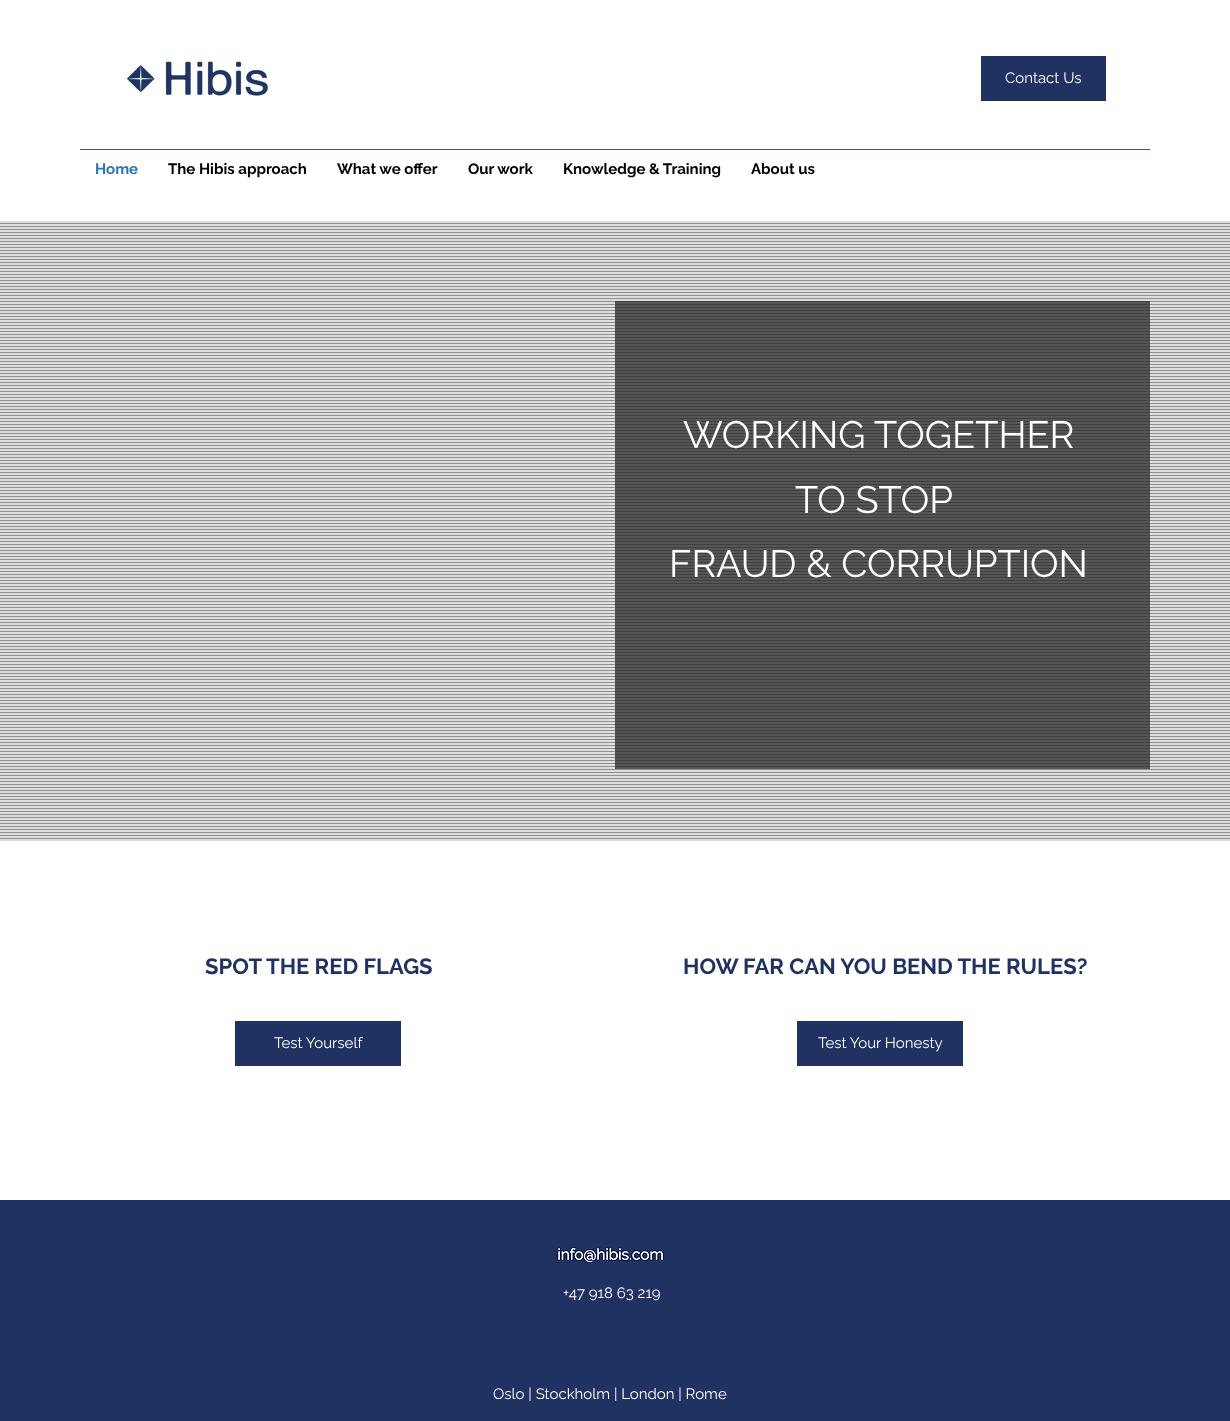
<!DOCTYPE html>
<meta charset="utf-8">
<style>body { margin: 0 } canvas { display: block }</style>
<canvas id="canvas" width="1230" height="1421"></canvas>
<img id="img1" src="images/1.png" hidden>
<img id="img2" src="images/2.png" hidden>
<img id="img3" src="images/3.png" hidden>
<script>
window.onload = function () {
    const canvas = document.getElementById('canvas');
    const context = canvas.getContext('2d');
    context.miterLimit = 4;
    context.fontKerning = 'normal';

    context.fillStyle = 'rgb(255, 255, 255)';
    context.fillRect(0, 0, 1230, 1421);
    context.drawImage(document.getElementById('img1'), 127, 61, 141, 35);
    context.fillStyle = 'rgb(31, 50, 97)';
    context.fillRect(981, 56, 125, 45);
    context.fillStyle = 'rgb(65, 82, 122)';
    context.fillRect(80, 149, 1070, 1);
    context.fillStyle = 'rgb(221, 221, 221)';
    context.fillRect(0, 221, 1230, 620);
    context.drawImage(document.getElementById('img2'), 0, 223, 1230, 616);
    context.fillStyle = 'rgba(24, 24, 24, 0.69)';
    context.fillRect(615, 301, 535, 468);
    context.fillStyle = 'rgb(31, 50, 97)';
    context.fillRect(235, 1021, 166, 45);
    context.fillRect(797, 1021, 166, 45);
    context.fillRect(0, 1200, 1230, 221);
    context.drawImage(document.getElementById('img3'), 557, 1246, 107, 18);
    context.font = '15px Raleway';
    context.fillStyle = 'rgb(255, 255, 255)';
    context.fillText('Contact Us', 1005, 83);
    context.font = 'bold 15px Raleway';
    context.fillStyle = 'rgb(46, 116, 181)';
    context.fillText('Home', 95, 174);
    context.fillStyle = 'rgb(0, 0, 0)';
    context.fillText('The Hibis approach', 168, 174);
    context.fillText('What we offer', 337, 174);
    context.fillText('Our work', 468, 174);
    context.fillText('Knowledge & Training', 563, 174);
    context.fillText('About us', 751, 174);
    context.font = '38px Raleway';
    context.fillStyle = 'rgb(255, 255, 255)';
    context.fillText('WORKING TOGETHER', 683, 448);
    context.fillText('TO STOP', 795, 513);
    context.fillText('FRAUD & CORRUPTION', 669, 577);
    context.font = 'bold 22px Raleway';
    context.fillStyle = 'rgb(31, 50, 97)';
    context.fillText('SPOT THE RED FLAGS', 205, 974);
    context.font = '15px Raleway';
    context.fillStyle = 'rgb(255, 255, 255)';
    context.fillText('Test Yourself', 274, 1048);
    context.font = 'bold 22px Raleway';
    context.fillStyle = 'rgb(31, 50, 97)';
    context.fillText('HOW FAR CAN YOU BEND THE RULES?', 683, 974);
    context.font = '15px Raleway';
    context.fillStyle = 'rgb(255, 255, 255)';
    context.fillText('Test Your Honesty', 818, 1048);
    context.fillText('+47 918 63 219', 563, 1298);
    context.fillText('Oslo | Stockholm | London | Rome', 493, 1399);
};
</script>
